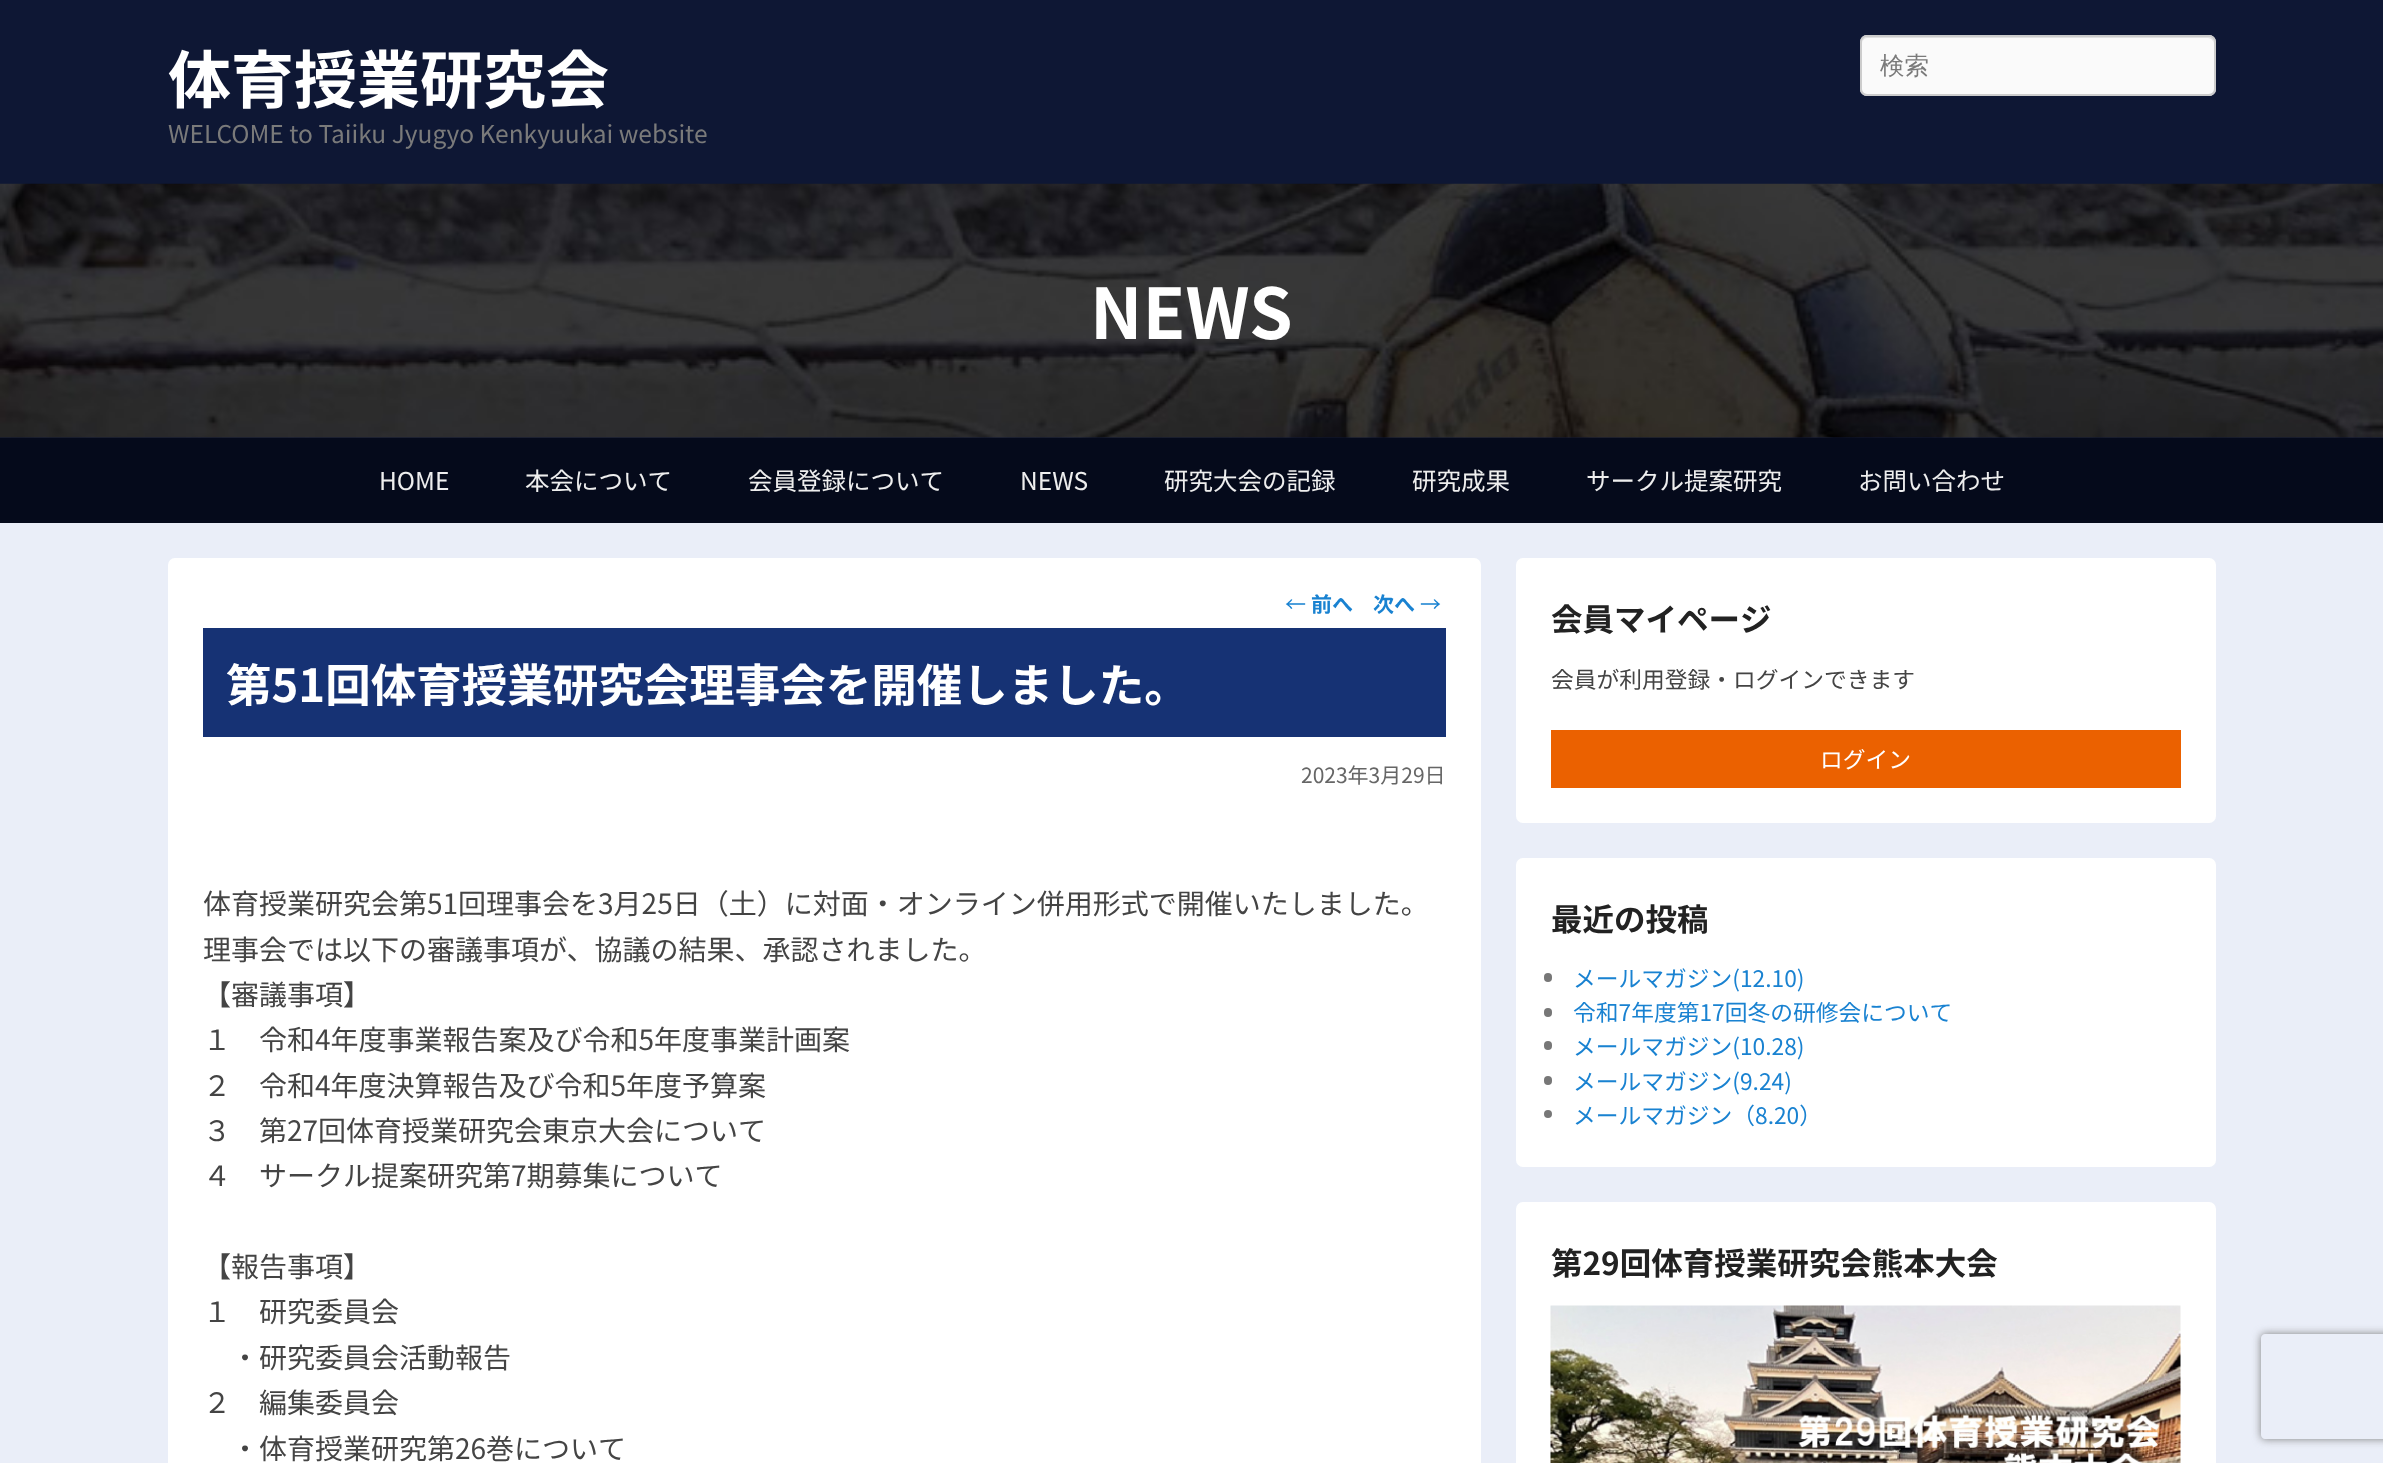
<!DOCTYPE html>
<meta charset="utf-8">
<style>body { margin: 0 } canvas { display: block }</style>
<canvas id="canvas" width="2383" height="1463"></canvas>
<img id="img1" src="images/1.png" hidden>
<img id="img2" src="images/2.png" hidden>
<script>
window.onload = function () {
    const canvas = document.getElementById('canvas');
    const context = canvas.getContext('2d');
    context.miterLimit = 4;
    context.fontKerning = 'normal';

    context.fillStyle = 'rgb(234, 238, 248)';
    context.fillRect(0, 0, 2383, 1463);
    context.fillStyle = 'rgb(14, 23, 52)';
    context.fillRect(0, 0, 2383, 438);
    context.fillStyle = 'rgb(250, 250, 250)';
    context.beginPath();
    context.roundRect(1860, 35, 356, 61, 7);
    context.fill();
    context.fillStyle = 'rgb(225, 225, 225)';
    context.beginPath();
    context.moveTo(1867, 38);
    context.lineTo(2208, 38);
    context.bezierCurveTo(2211, 38, 2214, 41, 2214, 44);
    context.bezierCurveTo(2214, 41, 2213, 37, 2209, 37);
    context.lineTo(1867, 37);
    context.bezierCurveTo(1863, 37, 1862, 41, 1862, 44);
    context.bezierCurveTo(1862, 41, 1864, 38, 1867, 38);
    context.closePath();
    context.fill();
    context.beginPath();
    context.roundRect(1861, 36, 354, 59, 6);
    context.strokeStyle = 'rgb(204, 204, 204)';
    context.lineWidth = 2;
    context.stroke();
    context.drawImage(document.getElementById('img1'), 0, 183, 2383, 255);
    context.fillStyle = 'rgb(5, 10, 27)';
    context.fillRect(0, 438, 2383, 85);
    context.fillStyle = 'rgb(255, 255, 255)';
    context.beginPath();
    context.roundRect(168, 558, 1313, 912, 7);
    context.fill();
    context.fillStyle = 'rgb(22, 50, 116)';
    context.fillRect(203, 628, 1243, 109);
    context.fillStyle = 'rgb(255, 255, 255)';
    context.beginPath();
    context.roundRect(1516, 558, 700, 265, 7);
    context.fill();
    context.fillStyle = 'rgb(235, 97, 0)';
    context.fillRect(1551, 730, 630, 58);
    context.fillStyle = 'rgb(255, 255, 255)';
    context.beginPath();
    context.roundRect(1516, 858, 700, 309, 7);
    context.fill();
    context.fillStyle = 'rgb(119, 119, 119)';
    context.beginPath();
    context.roundRect(1544, 973, 8, 9, 4);
    context.fill();
    context.beginPath();
    context.roundRect(1544, 1008, 8, 9, 4);
    context.fill();
    context.beginPath();
    context.roundRect(1544, 1041, 8, 9, 4);
    context.fill();
    context.beginPath();
    context.roundRect(1544, 1076, 8, 9, 4);
    context.fill();
    context.beginPath();
    context.arc(1548, 1114, 4, 0, 2 * Math.PI);
    context.fill();
    context.fillStyle = 'rgb(255, 255, 255)';
    context.beginPath();
    context.roundRect(1516, 1202, 700, 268, 7);
    context.fill();
    context.drawImage(document.getElementById('img2'), 1550, 1305, 631, 158);
    context.save();
    context.beginPath();
    context.moveTo(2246, 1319);
    context.lineTo(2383, 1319);
    context.lineTo(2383, 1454);
    context.lineTo(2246, 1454);
    context.closePath();
    context.moveTo(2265, 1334);
    context.lineTo(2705, 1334);
    context.bezierCurveTo(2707, 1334, 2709, 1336, 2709, 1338);
    context.lineTo(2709, 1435);
    context.bezierCurveTo(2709, 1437, 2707, 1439, 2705, 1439);
    context.lineTo(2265, 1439);
    context.bezierCurveTo(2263, 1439, 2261, 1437, 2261, 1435);
    context.lineTo(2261, 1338);
    context.bezierCurveTo(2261, 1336, 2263, 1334, 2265, 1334);
    context.closePath();
    context.clip('evenodd');
    context.fillStyle = 'rgb(128, 128, 128)';
    context.filter = 'blur(4.5px)';
    context.beginPath();
    context.roundRect(2261, 1334, 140, 105, 4);
    context.fill();
    context.filter = 'none';
    context.restore();
    context.font = 'bold 63px Noto Sans JP';
    context.fillText('体育授業研究会', 168, 103);
    context.font = '24.5px Noto Sans JP';
    context.fillStyle = 'rgb(122, 122, 122)';
    context.fillText('WELCOME to Taiiku Jyugyo Kenkyuukai website', 168, 143);
    context.font = '500 24.5px WenQuanYi Zen Hei';
    context.fillText('検索', 1880, 74);
    context.font = 'bold 70px Noto Sans JP';
    context.fillStyle = 'rgb(255, 255, 255)';
    context.fillText('NEWS', 1090, 339);
    context.font = '24.5px Noto Sans JP';
    context.fillStyle = 'rgb(238, 238, 238)';
    context.fillText('HOME', 379, 490);
    context.fillText('本会について', 525, 490);
    context.fillText('会員登録について', 748, 490);
    context.fillText('NEWS', 1020, 490);
    context.fillText('研究大会の記録', 1164, 490);
    context.fillText('研究成果', 1412, 490);
    context.fillText('サークル提案研究', 1586, 490);
    context.fillText('お問い合わせ', 1858, 490);
    context.font = '21px Noto Sans JP';
    context.fillStyle = 'rgb(25, 130, 209)';
    context.fillText('←', 1285, 612);
    context.font = 'bold 21px Noto Sans JP';
    context.fillText('前へ', 1311, 612);
    context.fillText('次へ', 1373, 612);
    context.font = '21px Noto Sans JP';
    context.fillText('→', 1420, 612);
    context.font = 'bold 45.5px Noto Sans JP';
    context.fillStyle = 'rgb(255, 255, 255)';
    context.fillText('第51回体育授業研究会理事会を開催しました。', 226, 702);
    context.font = '21px Noto Sans JP';
    context.fillStyle = 'rgb(102, 102, 102)';
    context.fillText('2023年3月29日', 1301, 783);
    context.font = '28px Noto Sans JP';
    context.fillStyle = 'rgb(68, 68, 68)';
    context.fillText('体育授業研究会第51回理事会を3月25日（土）に対面・オンライン併用形式で開催いたしました。', 203, 914);
    context.fillText('理事会では以下の審議事項が、協議の結果、承認されました。', 203, 960);
    context.fillText('【審議事項】', 203, 1005);
    context.fillText('１　令和4年度事業報告案及び令和5年度事業計画案', 203, 1050);
    context.fillText('２　令和4年度決算報告及び令和5年度予算案', 203, 1096);
    context.fillText('３　第27回体育授業研究会東京大会について', 203, 1141);
    context.fillText('４　サークル提案研究第7期募集について', 203, 1186);
    context.fillText('【報告事項】', 203, 1277);
    context.fillText('１　研究委員会', 203, 1322);
    context.fillText('・研究委員会活動報告', 231, 1368);
    context.fillText('２　編集委員会', 203, 1413);
    context.fillText('・体育授業研究第26巻について', 231, 1459);
    context.font = 'bold 31.5px Noto Sans JP';
    context.fillStyle = 'rgb(34, 34, 34)';
    context.fillText('会員マイページ', 1551, 631);
    context.font = '22.75px Noto Sans JP';
    context.fillStyle = 'rgb(68, 68, 68)';
    context.fillText('会員が利用登録・ログインできます', 1551, 688);
    context.fillStyle = 'rgb(255, 255, 255)';
    context.fillText('ログイン', 1820, 768);
    context.font = 'bold 31.5px Noto Sans JP';
    context.fillStyle = 'rgb(34, 34, 34)';
    context.fillText('最近の投稿', 1551, 931);
    context.font = '22.75px Noto Sans JP';
    context.fillStyle = 'rgb(25, 130, 209)';
    context.fillText('メールマガジン(12.10)', 1573, 987);
    context.fillText('令和7年度第17回冬の研修会について', 1573, 1021);
    context.fillText('メールマガジン(10.28)', 1573, 1055);
    context.fillText('メールマガジン(9.24)', 1573, 1090);
    context.fillText('メールマガジン（8.20）', 1573, 1124);
    context.font = 'bold 31.5px Noto Sans JP';
    context.fillStyle = 'rgb(34, 34, 34)';
    context.fillText('第29回体育授業研究会熊本大会', 1551, 1275);
};
</script>
